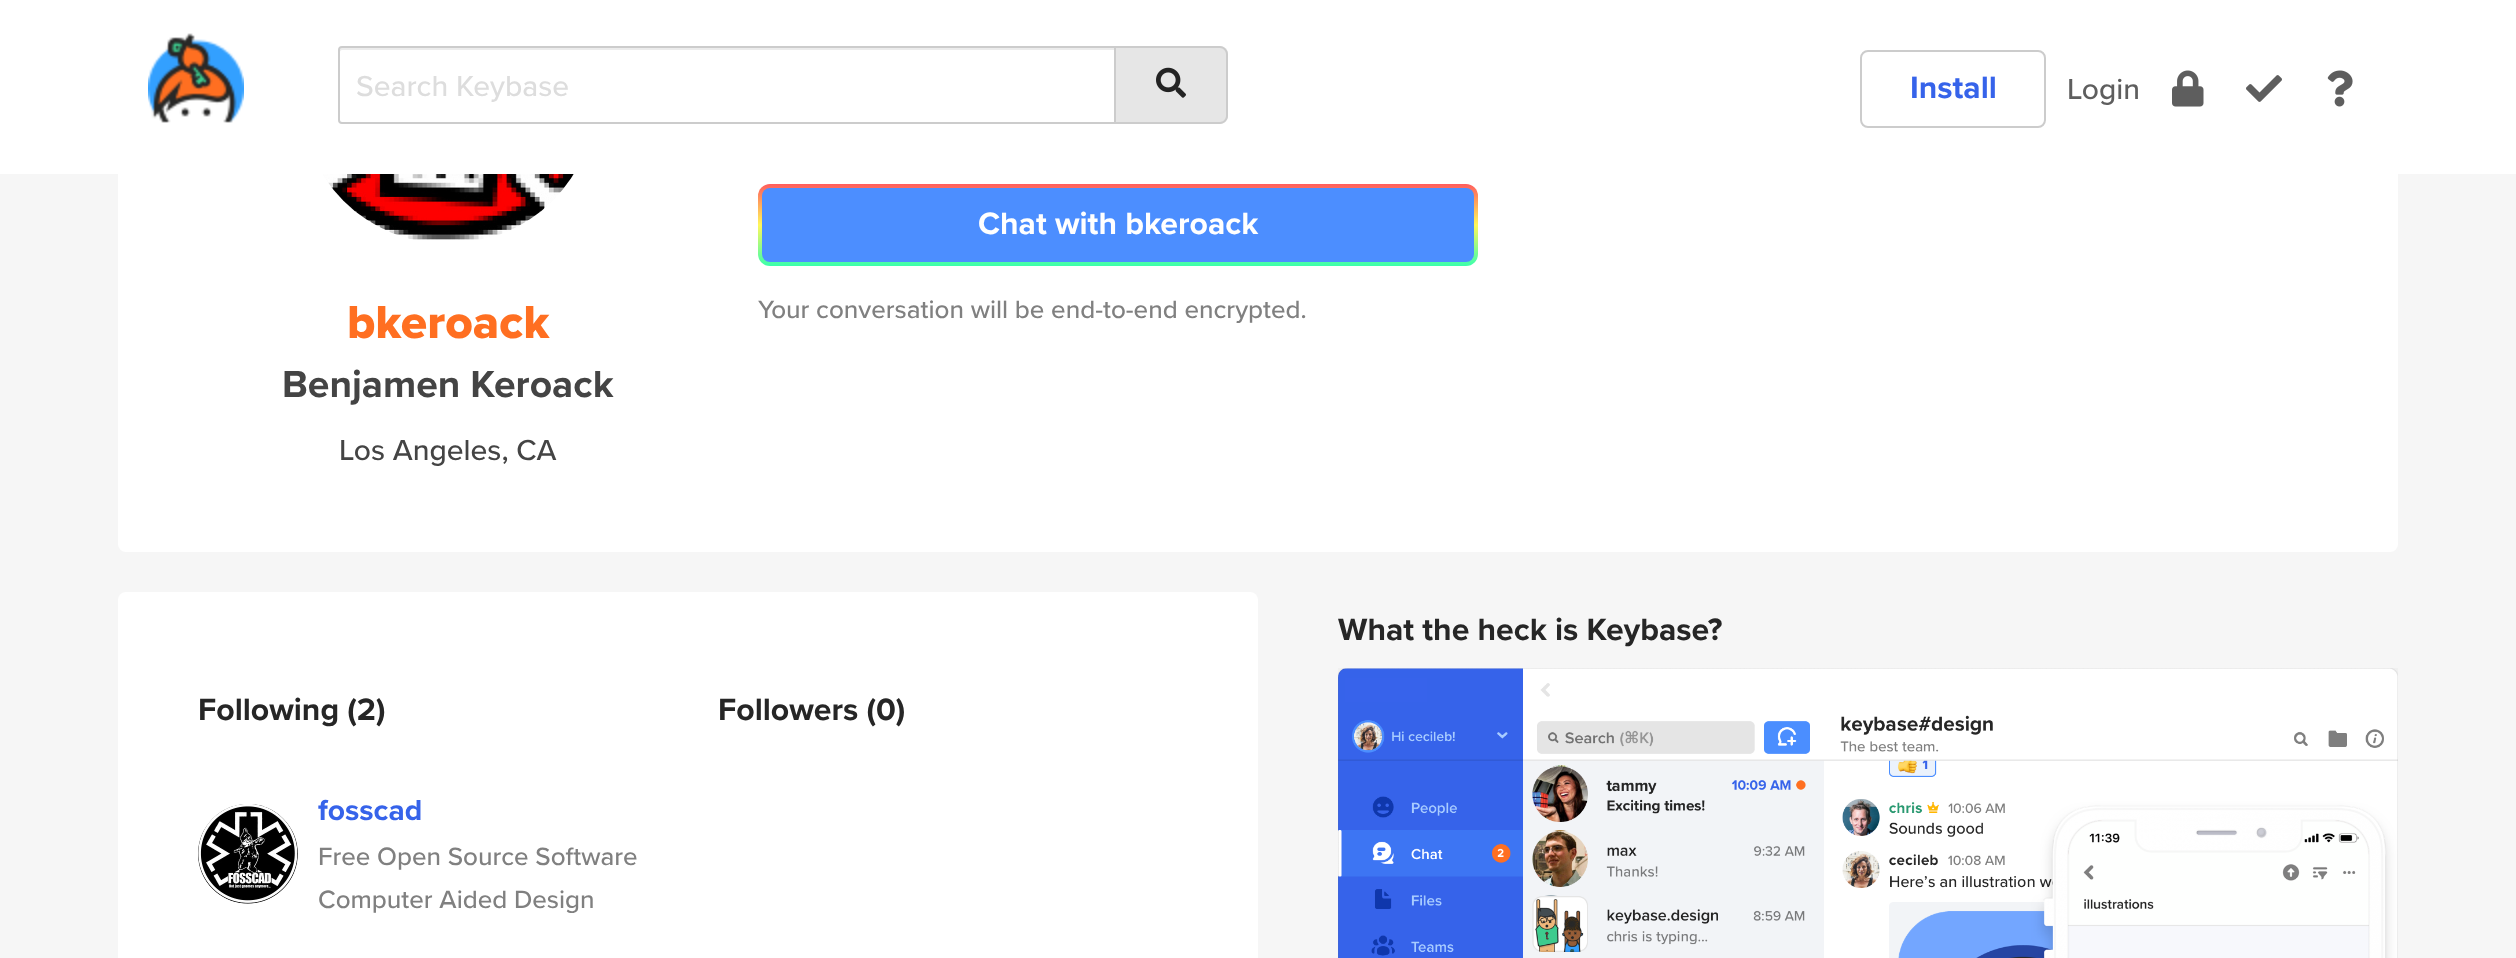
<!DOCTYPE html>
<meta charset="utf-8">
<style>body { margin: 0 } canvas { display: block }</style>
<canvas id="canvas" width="2516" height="958"></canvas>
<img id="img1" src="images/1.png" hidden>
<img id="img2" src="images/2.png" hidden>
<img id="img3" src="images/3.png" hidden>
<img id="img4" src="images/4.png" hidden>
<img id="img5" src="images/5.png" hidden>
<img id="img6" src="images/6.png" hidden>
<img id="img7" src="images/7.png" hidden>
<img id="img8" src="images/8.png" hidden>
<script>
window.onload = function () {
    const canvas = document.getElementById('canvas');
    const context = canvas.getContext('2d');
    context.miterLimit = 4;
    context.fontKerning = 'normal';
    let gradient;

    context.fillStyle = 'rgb(246, 246, 246)';
    context.fillRect(0, 0, 2516, 958);
    context.fillStyle = 'rgb(255, 255, 255)';
    context.beginPath();
    context.roundRect(118, -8, 2280, 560, 8);
    context.fill();
    context.fillRect(0, 0, 2516, 174);
    context.drawImage(document.getElementById('img1'), 148, 33, 96, 90);
    context.fillStyle = 'rgb(236, 236, 236)';
    context.beginPath();
    context.moveTo(342, 50);
    context.lineTo(1114, 50);
    context.lineTo(1114, 48);
    context.lineTo(342, 48);
    context.bezierCurveTo(340, 48, 340, 50, 340, 52);
    context.bezierCurveTo(340, 51, 341, 50, 342, 50);
    context.closePath();
    context.fill();
    context.beginPath();
    context.roundRect(339, 47, 776, 76, [3, 0, 0, 3]);
    context.strokeStyle = 'rgb(204, 204, 204)';
    context.lineWidth = 2;
    context.stroke();
    context.fillStyle = 'rgb(230, 230, 230)';
    context.beginPath();
    context.roundRect(1116, 46, 112, 78, [0, 8, 8, 0]);
    context.fill();
    context.fillStyle = 'rgb(204, 204, 204)';
    context.beginPath();
    context.moveTo(1116, 46);
    context.lineTo(1220, 46);
    context.bezierCurveTo(1224, 46, 1228, 50, 1228, 54);
    context.lineTo(1228, 116);
    context.bezierCurveTo(1228, 120, 1224, 124, 1220, 124);
    context.lineTo(1116, 124);
    context.closePath();
    context.moveTo(1116, 48);
    context.lineTo(1220, 48);
    context.bezierCurveTo(1223, 48, 1226, 51, 1226, 54);
    context.lineTo(1226, 116);
    context.bezierCurveTo(1226, 119, 1223, 122, 1220, 122);
    context.lineTo(1116, 122);
    context.closePath();
    context.fill('evenodd');
    context.drawImage(document.getElementById('img2'), 1156, 67, 30, 31);
    context.beginPath();
    context.roundRect(1861, 51, 184, 76, 7);
    context.stroke();
    context.drawImage(document.getElementById('img3'), 2172, 70, 32, 37);
    context.drawImage(document.getElementById('img4'), 2246, 75, 36, 27);
    context.drawImage(document.getElementById('img5'), 2327, 70, 26, 37);
    gradient = context.createLinearGradient(1118, 184, 1118, 266);
    gradient.addColorStop(0, 'rgb(255, 93, 93)');
    gradient.addColorStop(0.5, 'rgb(255, 247, 90)');
    gradient.addColorStop(1, 'rgb(58, 255, 172)');
    context.fillStyle = gradient;
    context.beginPath();
    context.roundRect(758, 184, 720, 82, 12);
    context.fill();
    context.fillStyle = 'rgb(76, 142, 255)';
    context.beginPath();
    context.roundRect(762, 188, 712, 74, 8);
    context.fill();
    context.drawImage(document.getElementById('img6'), 322, 174, 252, 66);
    context.drawImage(document.getElementById('img7'), 1338, 668, 1060, 290);
    context.fillStyle = 'rgb(255, 255, 255)';
    context.beginPath();
    context.roundRect(118, 592, 1140, 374, 8);
    context.fill();
    context.drawImage(document.getElementById('img8'), 198, 804, 100, 100);
    context.font = '500 30px Proxima Nova';
    context.fillStyle = 'rgb(221, 221, 221)';
    context.fillText('Search Keybase', 356, 96);
    context.font = 'bold 32px Proxima Nova';
    context.fillStyle = 'rgb(54, 99, 234)';
    context.fillText('Install', 1910, 98);
    context.font = '500 30px Proxima Nova';
    context.fillStyle = 'rgb(94, 94, 94)';
    context.fillText('Login', 2067, 99);
    context.font = 'bold 32px Proxima Nova';
    context.fillStyle = 'rgb(255, 255, 255)';
    context.fillText('Chat with bkeroack', 978, 234);
    context.font = '500 26px Proxima Nova';
    context.fillStyle = 'rgb(128, 128, 128)';
    context.fillText('Your conversation will be end-to-end encrypted.', 758, 318);
    context.font = '800 48px Proxima Nova';
    context.fillStyle = 'rgb(255, 111, 33)';
    context.fillText('bkeroack', 347, 338);
    context.font = 'bold 39px Proxima Nova';
    context.fillStyle = 'rgb(68, 68, 68)';
    context.fillText('Benjamen Keroack', 282, 397);
    context.font = '500 30px Proxima Nova';
    context.fillText('Los Angeles, CA', 339, 460);
    context.font = 'bold 32px Proxima Nova';
    context.fillStyle = 'rgb(38, 38, 38)';
    context.fillText('What the heck is Keybase?', 1338, 640);
    context.fillText('Following (2)', 198, 720);
    context.font = 'bold 30px Proxima Nova';
    context.fillStyle = 'rgb(54, 99, 234)';
    context.fillText('fosscad', 318, 820);
    context.font = '500 26px Proxima Nova';
    context.fillStyle = 'rgb(128, 128, 128)';
    context.fillText('Free Open Source Software', 318, 865);
    context.fillText('Computer Aided Design', 318, 908);
    context.font = 'bold 32px Proxima Nova';
    context.fillStyle = 'rgb(38, 38, 38)';
    context.fillText('Followers (0)', 718, 720);
};
</script>
